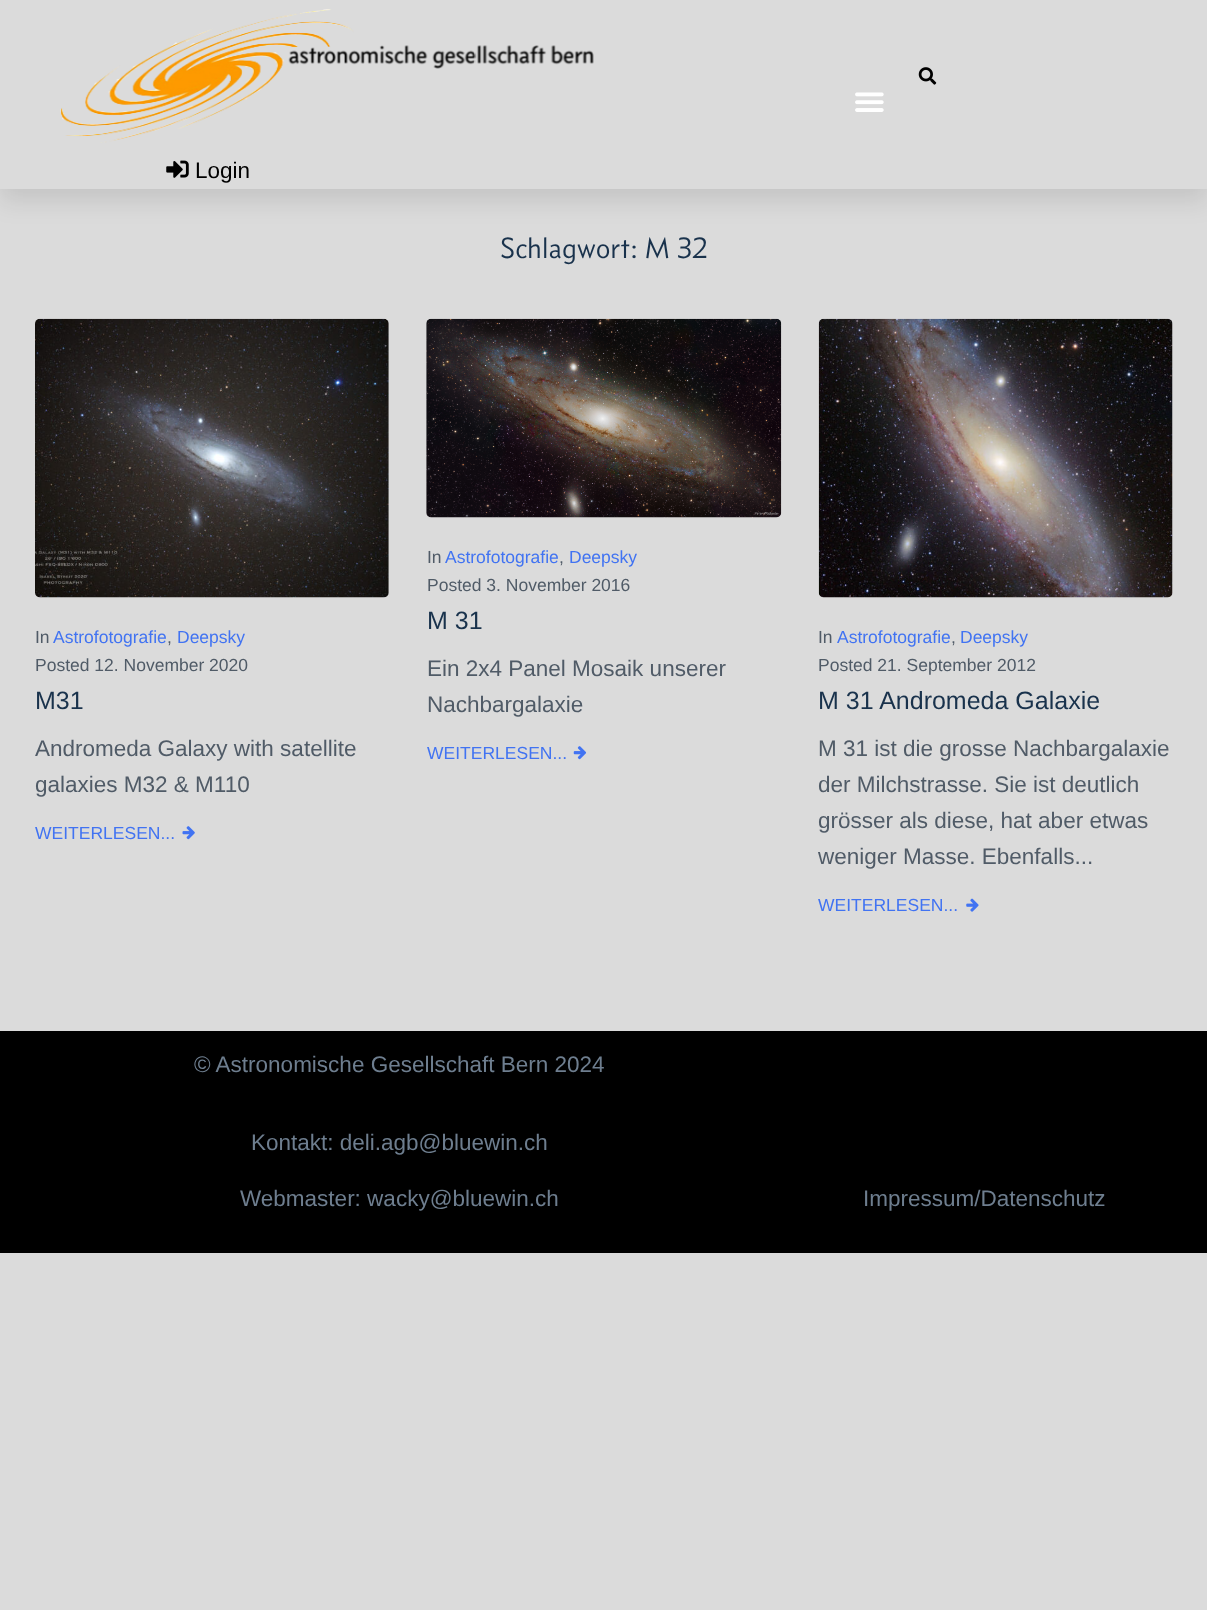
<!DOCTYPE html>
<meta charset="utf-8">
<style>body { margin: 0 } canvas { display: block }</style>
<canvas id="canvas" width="1207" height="1610"></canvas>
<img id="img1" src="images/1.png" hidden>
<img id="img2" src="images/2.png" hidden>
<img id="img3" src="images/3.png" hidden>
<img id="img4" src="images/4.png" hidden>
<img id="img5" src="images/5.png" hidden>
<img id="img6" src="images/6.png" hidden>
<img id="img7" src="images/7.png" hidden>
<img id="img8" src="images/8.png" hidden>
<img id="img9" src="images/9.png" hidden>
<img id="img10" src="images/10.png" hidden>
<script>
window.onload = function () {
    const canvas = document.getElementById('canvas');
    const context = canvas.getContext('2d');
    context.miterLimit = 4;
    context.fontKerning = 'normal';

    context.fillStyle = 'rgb(219, 219, 219)';
    context.fillRect(0, 0, 1207, 1610);
    context.fillStyle = 'rgba(0, 0, 0, 0.1)';
    context.filter = 'blur(12.5px)';
    context.beginPath();
    context.rect(0, 13, 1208, 188);
    context.fill();
    context.filter = 'none';
    context.fillStyle = 'rgb(219, 219, 219)';
    context.fillRect(0, 0, 1207, 189);
    context.drawImage(document.getElementById('img1'), 60, 9, 534, 134);
    context.drawImage(document.getElementById('img2'), 918, 67, 19, 18);
    context.drawImage(document.getElementById('img3'), 855, 92, 29, 20);
    context.drawImage(document.getElementById('img4'), 166, 160, 23, 18);
    context.drawImage(document.getElementById('img5'), 35, 318, 354, 280);
    context.drawImage(document.getElementById('img6'), 182, 826, 13, 14);
    context.drawImage(document.getElementById('img7'), 426, 318, 356, 200);
    context.drawImage(document.getElementById('img8'), 573, 746, 14, 14);
    context.drawImage(document.getElementById('img9'), 818, 318, 355, 280);
    context.drawImage(document.getElementById('img10'), 966, 898, 13, 14);
    context.fillStyle = 'rgb(0, 0, 0)';
    context.fillRect(0, 1031, 1207, 222);
    context.font = '22.5px Liberation Sans';
    context.fillText('Login', 195, 178);
    context.font = '300 30px "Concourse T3"';
    context.fillStyle = 'rgb(25, 50, 76)';
    context.fillText('Schlagwort: M 32', 500, 258);
    context.font = '17.5px Liberation Sans';
    context.fillStyle = 'rgb(80, 91, 103)';
    context.fillText('In', 35, 643);
    context.fillStyle = 'rgb(65, 115, 242)';
    context.fillText('Astrofotografie', 53, 643);
    context.fillStyle = 'rgb(80, 91, 103)';
    context.fillText(',', 167, 643);
    context.fillStyle = 'rgb(65, 115, 242)';
    context.fillText('Deepsky', 177, 643);
    context.fillStyle = 'rgb(80, 91, 103)';
    context.fillText('Posted 12. November 2020', 35, 671);
    context.font = '25px Liberation Sans';
    context.fillStyle = 'rgb(25, 50, 76)';
    context.fillText('M31', 35, 709);
    context.font = '22.5px Liberation Sans';
    context.fillStyle = 'rgb(80, 91, 103)';
    context.fillText('Andromeda Galaxy with satellite', 35, 756);
    context.fillText('galaxies M32 & M110', 35, 792);
    context.font = '17.5px Liberation Sans';
    context.fillStyle = 'rgb(65, 115, 242)';
    context.fillText('WEITERLESEN...', 35, 839);
    context.fillStyle = 'rgb(80, 91, 103)';
    context.fillText('In', 427, 563);
    context.fillStyle = 'rgb(65, 115, 242)';
    context.fillText('Astrofotografie', 445, 563);
    context.fillStyle = 'rgb(80, 91, 103)';
    context.fillText(',', 559, 563);
    context.fillStyle = 'rgb(65, 115, 242)';
    context.fillText('Deepsky', 569, 563);
    context.fillStyle = 'rgb(80, 91, 103)';
    context.fillText('Posted 3. November 2016', 427, 591);
    context.font = '25px Liberation Sans';
    context.fillStyle = 'rgb(25, 50, 76)';
    context.fillText('M 31', 427, 629);
    context.font = '22.5px Liberation Sans';
    context.fillStyle = 'rgb(80, 91, 103)';
    context.fillText('Ein 2x4 Panel Mosaik unserer', 427, 676);
    context.fillText('Nachbargalaxie', 427, 712);
    context.font = '17.5px Liberation Sans';
    context.fillStyle = 'rgb(65, 115, 242)';
    context.fillText('WEITERLESEN...', 427, 759);
    context.fillStyle = 'rgb(80, 91, 103)';
    context.fillText('In', 818, 643);
    context.fillStyle = 'rgb(65, 115, 242)';
    context.fillText('Astrofotografie', 837, 643);
    context.fillStyle = 'rgb(80, 91, 103)';
    context.fillText(',', 951, 643);
    context.fillStyle = 'rgb(65, 115, 242)';
    context.fillText('Deepsky', 960, 643);
    context.fillStyle = 'rgb(80, 91, 103)';
    context.fillText('Posted 21. September 2012', 818, 671);
    context.font = '25px Liberation Sans';
    context.fillStyle = 'rgb(25, 50, 76)';
    context.fillText('M 31 Andromeda Galaxie', 818, 709);
    context.font = '22.5px Liberation Sans';
    context.fillStyle = 'rgb(80, 91, 103)';
    context.fillText('M 31 ist die grosse Nachbargalaxie', 818, 756);
    context.fillText('der Milchstrasse. Sie ist deutlich', 818, 792);
    context.fillText('grösser als diese, hat aber etwas', 818, 828);
    context.fillText('weniger Masse. Ebenfalls...', 818, 864);
    context.font = '17.5px Liberation Sans';
    context.fillStyle = 'rgb(65, 115, 242)';
    context.fillText('WEITERLESEN...', 818, 911);
    context.font = '22.5px Liberation Sans';
    context.fillStyle = 'rgb(110, 126, 143)';
    context.fillText('© Astronomische Gesellschaft Bern 2024', 194, 1072);
    context.fillText('Kontakt: deli.agb@bluewin.ch', 251, 1150);
    context.fillText('Webmaster: wacky@bluewin.ch', 240, 1206);
    context.fillText('Impressum/Datenschutz', 863, 1206);
};
</script>
